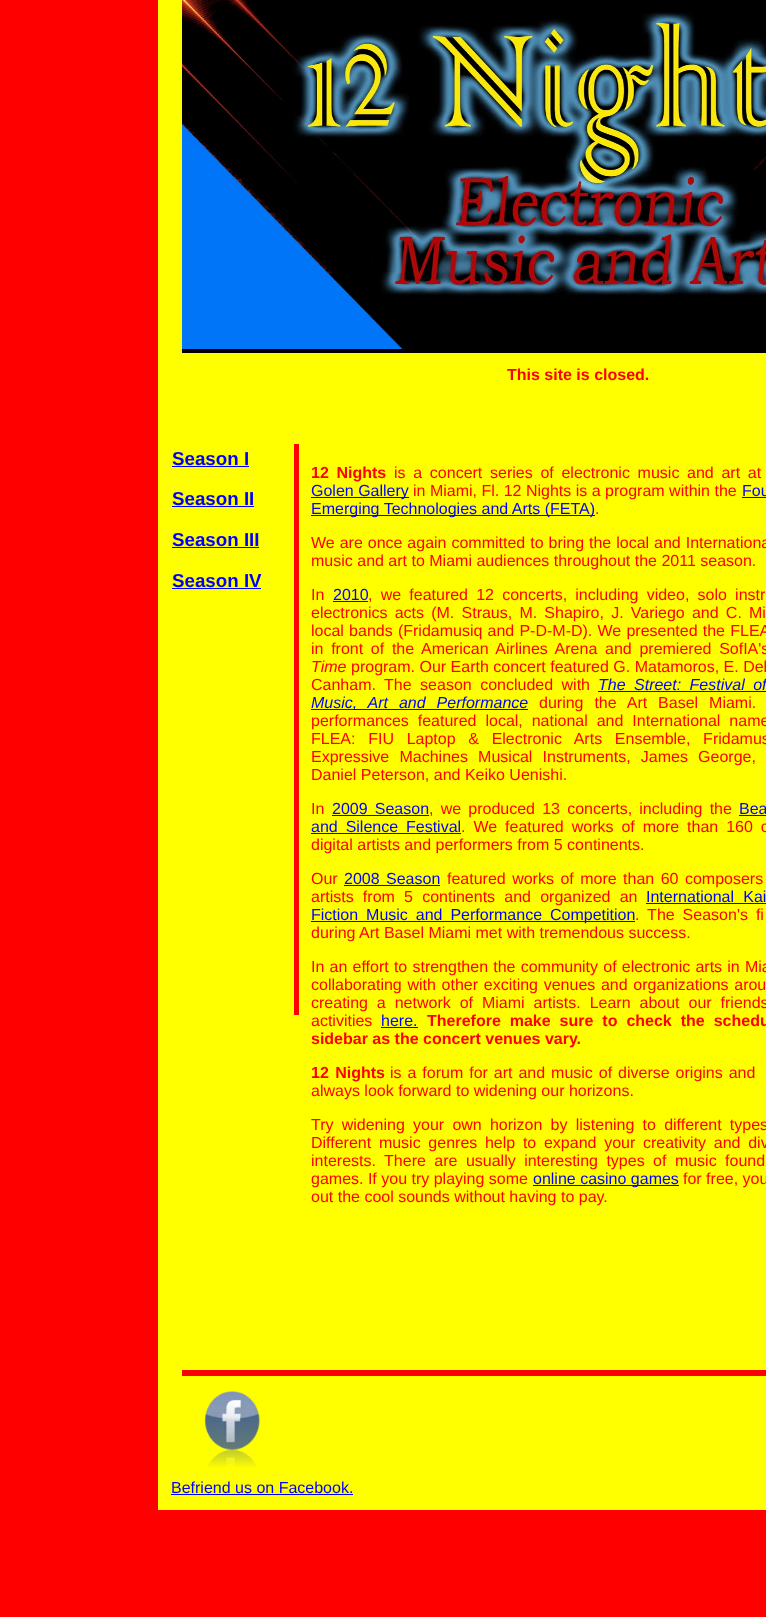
<!DOCTYPE html>
<meta charset="utf-8">
<style>body { margin: 0 } canvas { display: block }</style>
<canvas id="canvas" width="766" height="1617"></canvas>
<img id="img1" src="images/1.png" hidden>
<img id="img2" src="images/2.png" hidden>
<script>
window.onload = function () {
    const canvas = document.getElementById('canvas');
    const context = canvas.getContext('2d');
    context.miterLimit = 4;
    context.fontKerning = 'normal';

    context.fillStyle = 'rgb(255, 0, 0)';
    context.fillRect(0, 0, 766, 1617);
    context.fillStyle = 'rgb(255, 255, 0)';
    context.fillRect(158, 0, 24, 353);
    context.fillStyle = 'rgb(0, 0, 0)';
    context.fillRect(182, 349, 584, 4);
    context.drawImage(document.getElementById('img1'), 182, 0, 584, 349);
    context.fillStyle = 'rgb(255, 255, 0)';
    context.fillRect(158, 353, 608, 1157);
    context.fillStyle = 'rgb(0, 0, 255)';
    context.fillRect(172, 466, 77, 1);
    context.fillRect(172, 506, 82, 1);
    context.fillRect(172, 547, 87, 1);
    context.fillRect(172, 588, 89, 1);
    context.fillStyle = 'rgb(255, 0, 0)';
    context.fillRect(294, 444, 5, 571);
    context.fillStyle = 'rgb(0, 0, 255)';
    context.fillRect(311, 497, 98, 1);
    context.fillRect(742, 497, 24, 1);
    context.fillRect(311, 515, 284, 1);
    context.fillRect(333, 601, 35, 1);
    context.fillRect(598, 691, 168, 1);
    context.fillRect(311, 709, 217, 1);
    context.fillRect(332, 815, 97, 1);
    context.fillRect(739, 815, 27, 1);
    context.fillRect(311, 833, 150, 1);
    context.fillRect(344, 885, 96, 1);
    context.fillRect(646, 903, 120, 1);
    context.fillRect(311, 921, 324, 1);
    context.fillRect(381, 1027, 37, 1);
    context.fillRect(533, 1185, 146, 1);
    context.fillStyle = 'rgb(255, 0, 0)';
    context.fillRect(182, 1370, 584, 6);
    context.drawImage(document.getElementById('img2'), 204, 1391, 56, 76);
    context.fillStyle = 'rgb(0, 0, 255)';
    context.fillRect(171, 1494, 182, 1);
    context.font = 'bold 18.75px Liberation Sans';
    context.fillText('Season I', 172, 465);
    context.fillText('Season II', 172, 505);
    context.fillText('Season III', 172, 546);
    context.fillText('Season IV', 172, 587);
    context.font = 'bold 16px Liberation Sans';
    context.fillStyle = 'rgb(255, 0, 0)';
    context.fillText('This site is closed.', 507, 380);
    context.wordSpacing = '3.25px';
    context.fillText('12 Nights', 311, 478);
    context.font = '16px Liberation Sans';
    context.fillText('is a concert series of electronic music and art at', 394, 478);
    context.wordSpacing = '0px';
    context.fillStyle = 'rgb(0, 0, 255)';
    context.fillText('Golen Gallery', 311, 496);
    context.fillStyle = 'rgb(255, 0, 0)';
    context.fillText('in Miami, Fl. 12 Nights is a program within the', 413, 496);
    context.fillStyle = 'rgb(0, 0, 255)';
    context.fillText('Fou', 742, 496);
    context.fillText('Emerging Technologies and Arts (FETA)', 311, 514);
    context.fillStyle = 'rgb(255, 0, 0)';
    context.fillText('.', 595, 514);
    context.wordSpacing = '0.5px';
    context.fillText('We are once again committed to bring the local and Internationa', 311, 548);
    context.wordSpacing = '0px';
    context.fillText('music and art to Miami audiences throughout the 2011 season.', 311, 566);
    context.fillText('In', 311, 600);
    context.fillStyle = 'rgb(0, 0, 255)';
    context.fillText('2010', 333, 600);
    context.wordSpacing = '3.75px';
    context.fillStyle = 'rgb(255, 0, 0)';
    context.fillText(', we featured 12 concerts, including video, solo instr', 368, 600);
    context.wordSpacing = '2.75px';
    context.fillText('electronics acts (M. Straus, M. Shapiro, J. Variego and C. Mi', 311, 618);
    context.wordSpacing = '0.75px';
    context.fillText('local bands (Fridamusiq and P-D-M-D). We presented the FLEA', 311, 636);
    context.wordSpacing = '3.25px';
    context.fillText('in front of the American Airlines Arena and premiered SofIA\'s', 311, 654);
    context.wordSpacing = '0px';
    context.font = 'italic 16px Liberation Sans';
    context.fillText('Time', 311, 672);
    context.font = '16px Liberation Sans';
    context.fillText('program. Our Earth concert featured G. Matamoros, E. Del', 351, 672);
    context.wordSpacing = '4px';
    context.fillText('Canham. The season concluded with', 311, 690);
    context.font = 'italic 16px Liberation Sans';
    context.fillStyle = 'rgb(0, 0, 255)';
    context.fillText('The Street: Festival of', 598, 690);
    context.wordSpacing = '6.5px';
    context.fillText('Music, Art and Performance', 311, 708);
    context.font = '16px Liberation Sans';
    context.fillStyle = 'rgb(255, 0, 0)';
    context.fillText('during the Art Basel Miami.', 539, 708);
    context.wordSpacing = '4.5px';
    context.fillText('performances featured local, national and International name', 311, 726);
    context.wordSpacing = '8.25px';
    context.fillText('FLEA: FIU Laptop & Electronic Arts Ensemble, Fridamus', 311, 744);
    context.wordSpacing = '5.75px';
    context.fillText('Expressive Machines Musical Instruments, James George,', 311, 762);
    context.wordSpacing = '0px';
    context.fillText('Daniel Peterson, and Keiko Uenishi.', 311, 780);
    context.fillText('In', 311, 814);
    context.wordSpacing = '2.75px';
    context.fillStyle = 'rgb(0, 0, 255)';
    context.fillText('2009 Season', 332, 814);
    context.fillStyle = 'rgb(255, 0, 0)';
    context.fillText(', we produced 13 concerts, including the', 429, 814);
    context.fillStyle = 'rgb(0, 0, 255)';
    context.fillText('Bea', 739, 814);
    context.wordSpacing = '3.5px';
    context.fillText('and Silence', 311, 832);
    context.wordSpacing = '0px';
    context.fillText('Festival', 406, 832);
    context.wordSpacing = '3.5px';
    context.fillStyle = 'rgb(255, 0, 0)';
    context.fillText('. We featured works of more than 160 c', 461, 832);
    context.wordSpacing = '0px';
    context.fillText('digital artists and performers from 5 continents.', 311, 850);
    context.fillText('Our', 311, 884);
    context.wordSpacing = '2px';
    context.fillStyle = 'rgb(0, 0, 255)';
    context.fillText('2008 Season', 344, 884);
    context.fillStyle = 'rgb(255, 0, 0)';
    context.fillText('featured works of more than 60 composers', 447, 884);
    context.wordSpacing = '4.75px';
    context.fillText('artists from 5 continents and organized an', 311, 902);
    context.fillStyle = 'rgb(0, 0, 255)';
    context.fillText('International Kai', 646, 902);
    context.wordSpacing = '3.5px';
    context.fillText('Fiction Music and Performance Competition', 311, 920);
    context.fillStyle = 'rgb(255, 0, 0)';
    context.fillText('. The Season\'s fi', 635, 920);
    context.wordSpacing = '0px';
    context.fillText('during Art Basel Miami met with tremendous success.', 311, 938);
    context.wordSpacing = '0.75px';
    context.fillText('In an effort to strengthen the community of electronic arts in Mia', 311, 972);
    context.wordSpacing = '1.25px';
    context.fillText('collaborating with other exciting venues and organizations arou', 311, 990);
    context.wordSpacing = '4.5px';
    context.fillText('creating a network of Miami artists. Learn about our friends', 311, 1008);
    context.wordSpacing = '0px';
    context.fillText('activities', 311, 1026);
    context.fillStyle = 'rgb(0, 0, 255)';
    context.fillText('here.', 381, 1026);
    context.wordSpacing = '4.5px';
    context.font = 'bold 16px Liberation Sans';
    context.fillStyle = 'rgb(255, 0, 0)';
    context.fillText('Therefore make sure to check the schedu', 427, 1026);
    context.wordSpacing = '0px';
    context.fillText('sidebar as the concert venues vary.', 311, 1044);
    context.wordSpacing = '2px';
    context.fillText('12 Nights', 311, 1078);
    context.wordSpacing = '1.5px';
    context.font = '16px Liberation Sans';
    context.fillText('is a forum for art and music of diverse origins and', 390, 1078);
    context.wordSpacing = '0px';
    context.fillText('always look forward to widening our horizons.', 311, 1096);
    context.wordSpacing = '3.75px';
    context.fillText('Try widening your own horizon by listening to different types', 311, 1130);
    context.wordSpacing = '3.25px';
    context.fillText('Different music genres help to expand your creativity and div', 311, 1148);
    context.wordSpacing = '4px';
    context.fillText('interests. There are usually interesting types of music found', 311, 1166);
    context.wordSpacing = '0px';
    context.fillText('games. If you try playing some', 311, 1184);
    context.fillStyle = 'rgb(0, 0, 255)';
    context.fillText('online casino games', 533, 1184);
    context.fillStyle = 'rgb(255, 0, 0)';
    context.fillText('for free, you', 683, 1184);
    context.fillText('out the cool sounds without having to pay.', 311, 1202);
    context.fillStyle = 'rgb(0, 0, 255)';
    context.fillText('Befriend us on Facebook.', 171, 1493);
};
</script>
